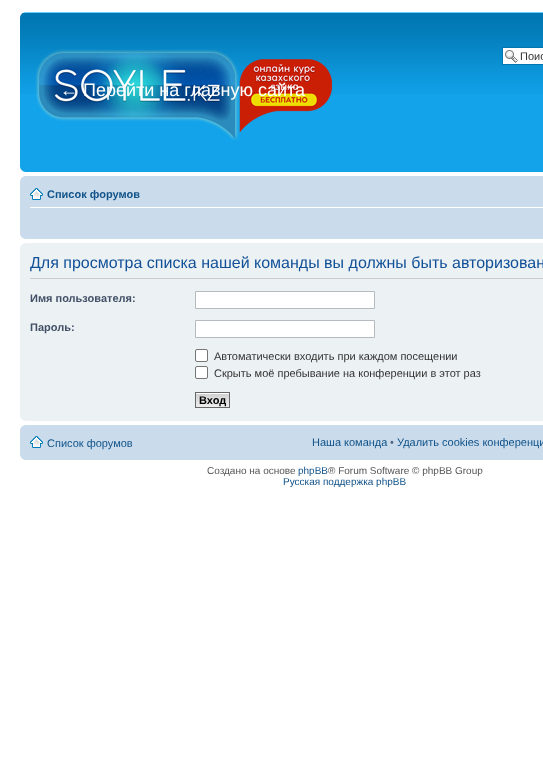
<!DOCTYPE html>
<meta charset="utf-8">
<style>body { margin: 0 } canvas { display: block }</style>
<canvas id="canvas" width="543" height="779"></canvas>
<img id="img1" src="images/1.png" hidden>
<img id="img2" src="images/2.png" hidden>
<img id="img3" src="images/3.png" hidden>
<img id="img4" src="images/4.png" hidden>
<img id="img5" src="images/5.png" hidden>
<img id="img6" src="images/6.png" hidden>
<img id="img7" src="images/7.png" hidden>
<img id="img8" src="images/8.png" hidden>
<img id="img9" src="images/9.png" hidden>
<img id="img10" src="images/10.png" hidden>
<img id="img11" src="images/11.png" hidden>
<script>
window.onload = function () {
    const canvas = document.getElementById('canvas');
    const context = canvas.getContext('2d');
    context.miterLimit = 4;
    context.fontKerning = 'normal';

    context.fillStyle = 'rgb(255, 255, 255)';
    context.fillRect(0, 0, 543, 779);
    context.fillStyle = 'rgb(18, 163, 235)';
    context.fillRect(20, 94, 523, 78);
    context.drawImage(document.getElementById('img1'), 20, 12, 523, 82);
    context.drawImage(document.getElementById('img2'), 20, 12, 5, 5);
    context.fillStyle = 'rgb(255, 255, 255)';
    context.fillRect(503, 48, 40, 16);
    context.drawImage(document.getElementById('img3'), 505, 50, 13, 13);
    context.strokeStyle = 'rgb(0, 117, 176)';
    context.strokeRect(502.5, 47.5, 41, 17);
    context.drawImage(document.getElementById('img4'), 35, 49, 297, 92);
    context.drawImage(document.getElementById('img5'), 20, 167, 5, 5);
    context.fillStyle = 'rgb(202, 220, 235)';
    context.fillRect(20, 176, 523, 63);
    context.drawImage(document.getElementById('img6'), 20, 176, 5, 5);
    context.fillStyle = 'rgb(255, 255, 255)';
    context.fillRect(30, 207, 513, 1);
    context.drawImage(document.getElementById('img7'), 30, 188, 13, 12);
    context.drawImage(document.getElementById('img8'), 20, 234, 5, 5);
    context.fillStyle = 'rgb(236, 241, 243)';
    context.fillRect(20, 243, 523, 178);
    context.drawImage(document.getElementById('img9'), 20, 243, 5, 5);
    context.fillStyle = 'rgb(204, 204, 204)';
    context.fillRect(30, 278, 513, 1);
    context.fillStyle = 'rgb(255, 255, 255)';
    context.beginPath();
    context.rect(195.5, 291.5, 179, 17);
    context.fill();
    context.strokeStyle = 'rgb(180, 186, 192)';
    context.stroke();
    context.beginPath();
    context.rect(195.5, 320.5, 179, 17);
    context.fill();
    context.stroke();
    context.beginPath();
    context.roundRect(195.5, 349.5, 12, 12, 1.5);
    context.fill();
    context.strokeStyle = 'rgb(118, 118, 118)';
    context.stroke();
    context.beginPath();
    context.roundRect(195.5, 366.5, 12, 12, 1.5);
    context.fill();
    context.stroke();
    context.drawImage(document.getElementById('img10'), 196, 393, 33, 14);
    context.strokeStyle = 'rgb(102, 102, 102)';
    context.strokeRect(195.5, 392.5, 34, 15);
    context.drawImage(document.getElementById('img11'), 20, 416, 5, 5);
    context.fillStyle = 'rgb(202, 220, 235)';
    context.fillRect(20, 425, 523, 35);
    context.drawImage(document.getElementById('img6'), 20, 425, 5, 5);
    context.drawImage(document.getElementById('img7'), 30, 436, 13, 12);
    context.drawImage(document.getElementById('img8'), 20, 455, 5, 5);
    context.font = '11px Liberation Sans';
    context.fillStyle = 'rgb(51, 51, 51)';
    context.fillText('Поис', 520, 60);
    context.font = '18px Liberation Sans';
    context.fillStyle = 'rgb(255, 255, 255)';
    context.fillText('← Перейти на главную сайта', 60, 96);
    context.font = 'bold 11px Liberation Sans';
    context.fillStyle = 'rgb(16, 82, 137)';
    context.fillText('Список форумов', 47, 198);
    context.font = '16px Liberation Sans';
    context.fillStyle = 'rgb(17, 80, 152)';
    context.fillText('Для просмотра списка нашей команды вы должны быть авторизован', 30, 268);
    context.font = 'bold 11px Liberation Sans';
    context.fillStyle = 'rgb(66, 80, 103)';
    context.fillText('Имя пользователя:', 30, 302);
    context.fillText('Пароль:', 30, 331);
    context.font = '11px Liberation Sans';
    context.fillStyle = 'rgb(51, 51, 51)';
    context.fillText('Автоматически входить при каждом посещении', 214, 360);
    context.fillText('Скрыть моё пребывание на конференции в этот раз', 214, 377);
    context.font = 'bold 11px Liberation Sans';
    context.fillStyle = 'rgb(0, 0, 0)';
    context.fillText('Вход', 199, 404);
    context.font = '11px Liberation Sans';
    context.fillStyle = 'rgb(16, 82, 137)';
    context.fillText('Список форумов', 47, 447);
    context.fillText('Наша команда', 312, 446);
    context.fillStyle = 'rgb(83, 100, 130)';
    context.fillText('•', 390, 446);
    context.fillStyle = 'rgb(16, 82, 137)';
    context.fillText('Удалить cookies конференци', 397, 446);
    context.font = '10px Liberation Sans';
    context.fillStyle = 'rgb(85, 85, 85)';
    context.fillText('Создано на основе', 207, 474);
    context.fillStyle = 'rgb(16, 82, 137)';
    context.fillText('phpBB', 298, 474);
    context.fillStyle = 'rgb(85, 85, 85)';
    context.fillText('® Forum Software © phpBB Group', 328, 474);
    context.fillStyle = 'rgb(16, 82, 137)';
    context.fillText('Русская поддержка phpBB', 283, 485);
};
</script>
